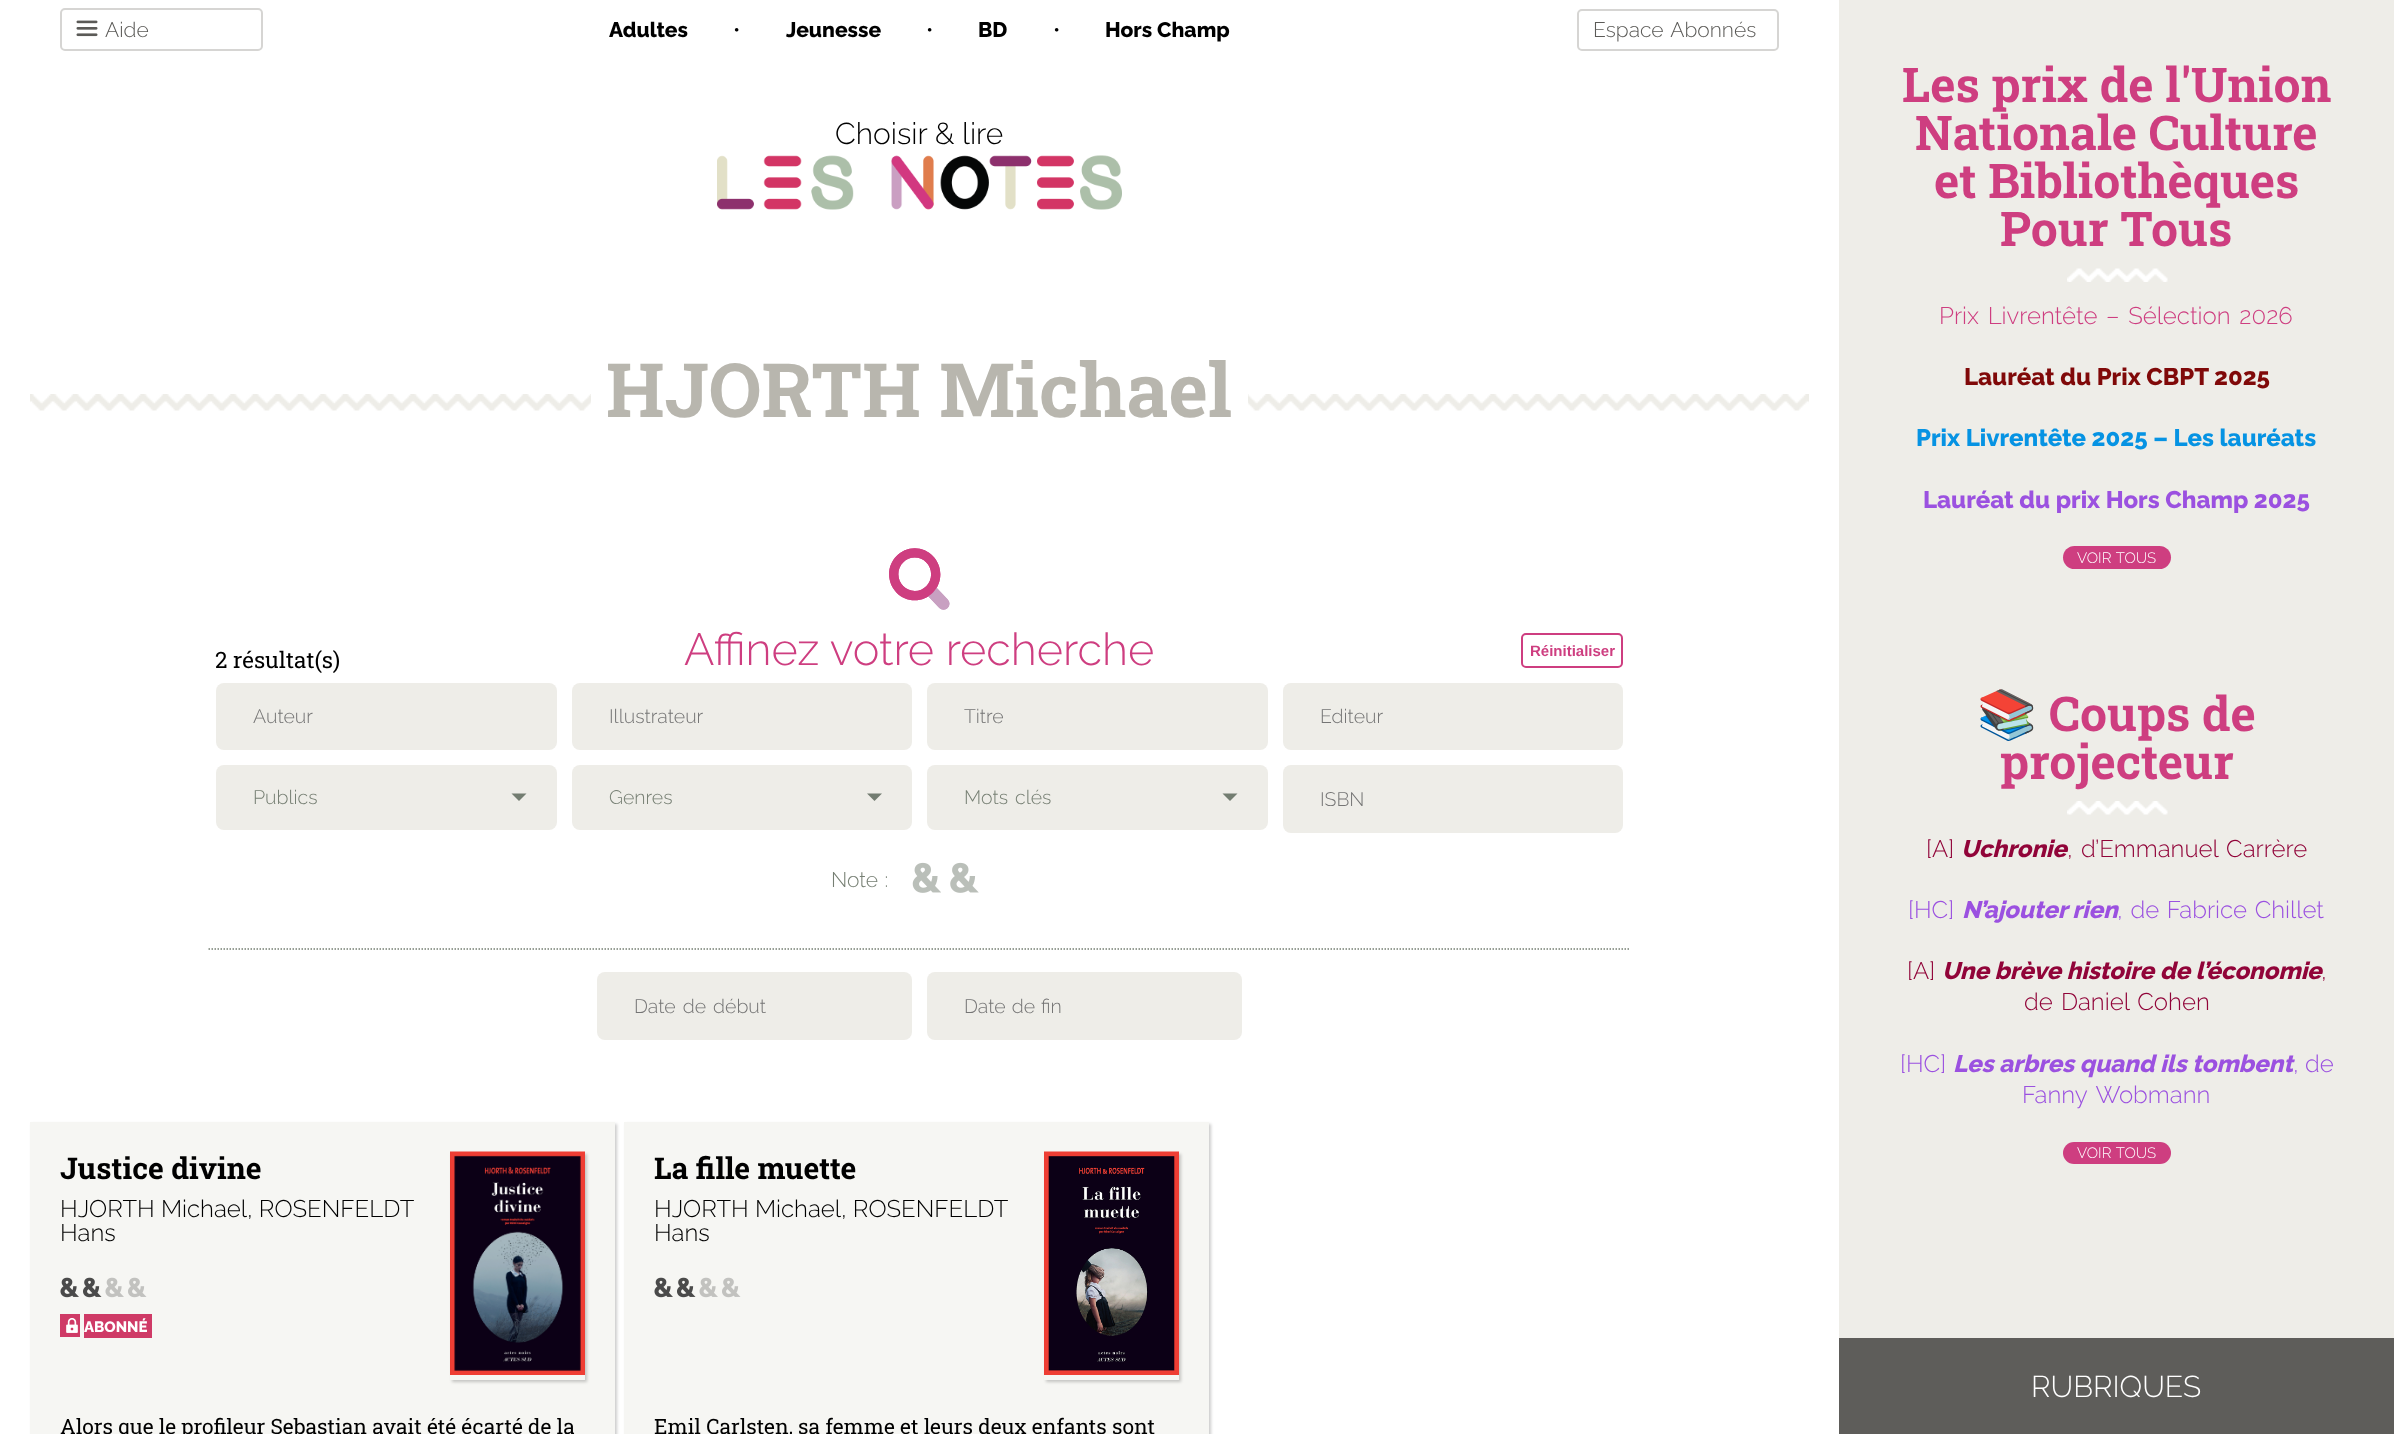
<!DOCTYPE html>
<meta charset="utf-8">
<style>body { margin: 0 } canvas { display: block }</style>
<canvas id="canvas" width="2394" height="1434"></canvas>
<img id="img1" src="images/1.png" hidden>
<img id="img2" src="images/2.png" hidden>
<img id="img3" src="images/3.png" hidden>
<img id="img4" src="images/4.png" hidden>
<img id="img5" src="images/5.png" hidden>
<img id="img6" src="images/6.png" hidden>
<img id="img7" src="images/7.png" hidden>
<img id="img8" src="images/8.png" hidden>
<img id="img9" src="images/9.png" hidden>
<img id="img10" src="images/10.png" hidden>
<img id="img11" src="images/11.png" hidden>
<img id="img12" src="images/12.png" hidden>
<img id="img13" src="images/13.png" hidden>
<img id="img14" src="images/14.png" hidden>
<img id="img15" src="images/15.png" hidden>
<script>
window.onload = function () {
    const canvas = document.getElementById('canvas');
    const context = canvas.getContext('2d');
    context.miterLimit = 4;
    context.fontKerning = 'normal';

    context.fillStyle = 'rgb(255, 255, 255)';
    context.fillRect(0, 0, 2394, 1434);
    context.beginPath();
    context.roundRect(61, 9, 201, 41, 4);
    context.strokeStyle = 'rgb(214, 213, 211)';
    context.lineWidth = 2;
    context.stroke();
    context.drawImage(document.getElementById('img1'), 76, 20, 22, 17);
    context.beginPath();
    context.roundRect(1578, 10, 200, 40, 4);
    context.stroke();
    context.drawImage(document.getElementById('img2'), 717, 155, 405, 55);
    context.drawImage(document.getElementById('img3'), 30, 394, 1779, 17);
    context.fillRect(591, 394, 657, 17);
    context.drawImage(document.getElementById('img4'), 889, 548, 61, 62);
    context.beginPath();
    context.roundRect(1522, 634, 100, 33, 4);
    context.strokeStyle = 'rgb(206, 62, 128)';
    context.stroke();
    context.fillStyle = 'rgb(238, 237, 232)';
    context.beginPath();
    context.roundRect(216, 683, 341, 67, 8);
    context.fill();
    context.beginPath();
    context.roundRect(572, 683, 340, 67, 8);
    context.fill();
    context.beginPath();
    context.roundRect(927, 683, 341, 67, 8);
    context.fill();
    context.beginPath();
    context.roundRect(1283, 683, 340, 67, 8);
    context.fill();
    context.beginPath();
    context.roundRect(216, 765, 341, 65, 8);
    context.fill();
    context.fillStyle = 'rgb(115, 125, 113)';
    context.beginPath();
    context.moveTo(511.5, 793.5);
    context.lineTo(526.5, 793.5);
    context.lineTo(519, 801);
    context.closePath();
    context.fill();
    context.fillStyle = 'rgb(238, 237, 232)';
    context.beginPath();
    context.roundRect(572, 765, 340, 65, 8);
    context.fill();
    context.fillStyle = 'rgb(115, 125, 113)';
    context.beginPath();
    context.moveTo(867, 793.5);
    context.lineTo(882, 793.5);
    context.lineTo(874.5, 801);
    context.closePath();
    context.fill();
    context.fillStyle = 'rgb(238, 237, 232)';
    context.beginPath();
    context.roundRect(927, 765, 341, 65, 8);
    context.fill();
    context.fillStyle = 'rgb(115, 125, 113)';
    context.beginPath();
    context.moveTo(1222.5, 793.5);
    context.lineTo(1237.5, 793.5);
    context.lineTo(1230, 801);
    context.closePath();
    context.fill();
    context.fillStyle = 'rgb(238, 237, 232)';
    context.beginPath();
    context.roundRect(1283, 765, 340, 68, 8);
    context.fill();
    context.drawImage(document.getElementById('img5'), 912, 862, 29, 31);
    context.drawImage(document.getElementById('img6'), 950, 862, 29, 31);
    context.beginPath();
    context.moveTo(208.5, 949);
    context.lineTo(1630.5, 949);
    context.strokeStyle = 'rgb(118, 127, 115)';
    context.lineWidth = 1.5;
    context.setLineDash([1.5, 1.5]);
    context.stroke();
    context.beginPath();
    context.roundRect(597, 972, 315, 68, 8);
    context.fill();
    context.beginPath();
    context.roundRect(927, 972, 315, 68, 8);
    context.fill();
    context.fillStyle = 'rgba(0, 0, 0, 0.2)';
    context.filter = 'blur(1.5px)';
    context.beginPath();
    context.rect(32, 1124, 585, 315);
    context.fill();
    context.filter = 'none';
    context.fillStyle = 'rgb(246, 246, 243)';
    context.fillRect(30, 1122, 585, 312);
    context.save();
    context.beginPath();
    context.moveTo(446, 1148);
    context.lineTo(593, 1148);
    context.lineTo(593, 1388);
    context.lineTo(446, 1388);
    context.closePath();
    context.moveTo(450, 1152);
    context.lineTo(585, 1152);
    context.lineTo(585, 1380);
    context.lineTo(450, 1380);
    context.closePath();
    context.clip('evenodd');
    context.fillStyle = 'rgba(0, 0, 0, 0.2)';
    context.filter = 'blur(1.5px)';
    context.beginPath();
    context.rect(452, 1154, 135, 228);
    context.fill();
    context.filter = 'none';
    context.restore();
    context.drawImage(document.getElementById('img7'), 450, 1151, 135, 224);
    context.drawImage(document.getElementById('img8'), 60, 1277, 19, 21);
    context.drawImage(document.getElementById('img9'), 83, 1277, 19, 21);
    context.drawImage(document.getElementById('img10'), 105, 1277, 19, 21);
    context.drawImage(document.getElementById('img11'), 128, 1277, 19, 21);
    context.fillStyle = 'rgb(207, 58, 102)';
    context.fillRect(60, 1314, 20, 23);
    context.drawImage(document.getElementById('img12'), 66, 1318, 12, 15);
    context.fillRect(84, 1314, 68, 24);
    context.fillStyle = 'rgba(0, 0, 0, 0.2)';
    context.filter = 'blur(1.5px)';
    context.beginPath();
    context.rect(626, 1124, 585, 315);
    context.fill();
    context.filter = 'none';
    context.fillStyle = 'rgb(246, 246, 243)';
    context.fillRect(624, 1122, 585, 312);
    context.save();
    context.beginPath();
    context.moveTo(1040, 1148);
    context.lineTo(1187, 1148);
    context.lineTo(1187, 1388);
    context.lineTo(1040, 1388);
    context.closePath();
    context.moveTo(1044, 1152);
    context.lineTo(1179, 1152);
    context.lineTo(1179, 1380);
    context.lineTo(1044, 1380);
    context.closePath();
    context.clip('evenodd');
    context.fillStyle = 'rgba(0, 0, 0, 0.2)';
    context.filter = 'blur(1.5px)';
    context.beginPath();
    context.rect(1046, 1154, 135, 228);
    context.fill();
    context.filter = 'none';
    context.restore();
    context.drawImage(document.getElementById('img13'), 1044, 1151, 135, 224);
    context.drawImage(document.getElementById('img8'), 654, 1277, 19, 21);
    context.drawImage(document.getElementById('img9'), 677, 1277, 19, 21);
    context.drawImage(document.getElementById('img10'), 699, 1277, 19, 21);
    context.drawImage(document.getElementById('img11'), 722, 1277, 19, 21);
    context.fillStyle = 'rgb(238, 237, 232)';
    context.fillRect(1839, 0, 555, 1338);
    context.drawImage(document.getElementById('img14'), 2067, 268, 101, 14);
    context.fillStyle = 'rgb(206, 62, 128)';
    context.beginPath();
    context.roundRect(2063, 546, 108, 23, 11.5);
    context.fill();
    context.drawImage(document.getElementById('img15'), 2067, 801, 101, 14);
    context.beginPath();
    context.roundRect(2063, 1142, 108, 22, 11);
    context.fill();
    context.fillStyle = 'rgb(94, 93, 90)';
    context.fillRect(1839, 1338, 555, 96);
    context.font = '300 21px Raleway';
    context.fillStyle = 'rgb(91, 90, 87)';
    context.fillText('Aide', 105, 37);
    context.font = '800 21px Raleway';
    context.fillStyle = 'rgb(0, 0, 0)';
    context.fillText('Adultes', 609, 37);
    context.font = '300 21px Raleway';
    context.fillText('•', 733, 37);
    context.font = '800 21px Raleway';
    context.fillText('Jeunesse', 786, 37);
    context.font = '300 21px Raleway';
    context.fillText('•', 926, 37);
    context.font = '800 21px Raleway';
    context.fillText('BD', 978, 37);
    context.font = '300 21px Raleway';
    context.fillText('•', 1053, 37);
    context.font = '800 21px Raleway';
    context.fillText('Hors Champ', 1105, 37);
    context.wordSpacing = '2px';
    context.font = '300 21px Raleway';
    context.fillStyle = 'rgb(91, 90, 87)';
    context.fillText('Espace Abonnés', 1593, 37);
    context.wordSpacing = '0px';
    context.font = '300 30px Raleway';
    context.fillStyle = 'rgb(0, 0, 0)';
    context.fillText('Choisir & lire', 835, 144);
    context.font = 'bold 75px Roboto Slab';
    context.fillStyle = 'rgb(184, 182, 174)';
    context.fillText('HJORTH Michael', 606, 417);
    context.font = '300 45px Raleway';
    context.fillStyle = 'rgb(206, 62, 128)';
    context.fillText('Affinez votre recherche', 684, 665);
    context.font = 'bold 15px Liberation Sans';
    context.fillText('Réinitialiser', 1530, 656);
    context.font = '300 19.5px Raleway';
    context.fillStyle = 'rgb(117, 117, 117)';
    context.fillText('Auteur', 253, 723);
    context.fillText('Illustrateur', 609, 723);
    context.fillText('Titre', 964, 723);
    context.fillText('Editeur', 1320, 723);
    context.fillStyle = 'rgb(118, 127, 115)';
    context.fillText('Publics', 253, 804);
    context.fillText('Genres', 609, 804);
    context.wordSpacing = '2px';
    context.fillText('Mots clés', 964, 804);
    context.wordSpacing = '0px';
    context.fillStyle = 'rgb(117, 117, 117)';
    context.fillText('ISBN', 1320, 806);
    context.wordSpacing = '1px';
    context.font = '300 21px Raleway';
    context.fillStyle = 'rgb(118, 127, 115)';
    context.fillText('Note :', 831, 887);
    context.wordSpacing = '2px';
    context.font = '300 19.5px Raleway';
    context.fillStyle = 'rgb(117, 117, 117)';
    context.fillText('Date de début', 634, 1013);
    context.wordSpacing = '1px';
    context.fillText('Date de fin', 964, 1013);
    context.wordSpacing = '0px';
    context.font = '22.5px Roboto Slab';
    context.fillStyle = 'rgb(0, 0, 0)';
    context.fillText('2 résultat(s)', 215, 668);
    context.font = 'bold 30px Roboto Slab';
    context.fillText('Justice divine', 60, 1179);
    context.font = '300 24px Raleway';
    context.fillText('HJORTH Michael, ROSENFELDT', 60, 1217);
    context.fillText('Hans', 60, 1241);
    context.font = '800 15px Raleway';
    context.fillStyle = 'rgb(255, 255, 255)';
    context.fillText('ABONNÉ', 84, 1332);
    context.font = '21px Roboto Slab';
    context.fillStyle = 'rgb(0, 0, 0)';
    context.fillText('Alors que le profileur Sebastian avait été écarté de la', 60, 1434);
    context.font = 'bold 30px Roboto Slab';
    context.fillText('La fille muette', 654, 1179);
    context.font = '300 24px Raleway';
    context.fillText('HJORTH Michael, ROSENFELDT', 654, 1217);
    context.fillText('Hans', 654, 1241);
    context.font = '21px Roboto Slab';
    context.fillText('Emil Carlsten, sa femme et leurs deux enfants sont', 654, 1434);
    context.font = 'bold 48px Roboto Slab';
    context.fillStyle = 'rgb(206, 62, 128)';
    context.fillText('Les prix de l\'Union', 1902, 102);
    context.fillText('Nationale Culture', 1915, 150);
    context.fillText('et Bibliothèques', 1934, 198);
    context.fillText('Pour Tous', 2000, 246);
    context.wordSpacing = '2.5px';
    context.font = '300 24px Raleway';
    context.fillText('Prix Livrentête – Sélection 2026', 1939, 324);
    context.wordSpacing = '0px';
    context.font = '800 24px Raleway';
    context.fillStyle = 'rgb(128, 9, 9)';
    context.fillText('Lauréat du Prix CBPT 2025', 1964, 385);
    context.fillStyle = 'rgb(6, 147, 227)';
    context.fillText('Prix Livrentête 2025 – Les lauréats', 1916, 446);
    context.fillStyle = 'rgb(155, 81, 224)';
    context.fillText('Lauréat du prix Hors Champ 2025', 1923, 508);
    context.wordSpacing = '1px';
    context.font = '300 15px Raleway';
    context.fillStyle = 'rgb(255, 255, 255)';
    context.fillText('VOIR TOUS', 2077, 563);
    context.wordSpacing = '0px';
    context.font = 'bold 48px Noto Color Emoji';
    context.fillStyle = 'rgb(206, 62, 128)';
    context.fillText('📚', 1977, 731);
    context.font = 'bold 48px Roboto Slab';
    context.fillText('Coups de', 2049, 731);
    context.fillText('projecteur', 2000, 779);
    context.font = '300 24px Raleway';
    context.fillStyle = 'rgb(145, 4, 57)';
    context.fillText('[A]', 1926, 857);
    context.font = 'italic 800 24px Raleway';
    context.fillText('Uchronie', 1961, 857);
    context.wordSpacing = '2px';
    context.font = '300 24px Raleway';
    context.fillText(', d’Emmanuel Carrère', 2067, 857);
    context.wordSpacing = '0px';
    context.fillStyle = 'rgb(155, 81, 224)';
    context.fillText('[HC]', 1908, 918);
    context.font = 'italic 800 24px Raleway';
    context.fillText('N’ajouter rien', 1962, 918);
    context.wordSpacing = '1.5px';
    context.font = '300 24px Raleway';
    context.fillText(', de Fabrice Chillet', 2117, 918);
    context.wordSpacing = '0px';
    context.fillStyle = 'rgb(145, 4, 57)';
    context.fillText('[A]', 1907, 979);
    context.font = 'italic 800 24px Raleway';
    context.fillText('Une brève histoire de l’économie', 1942, 979);
    context.font = '300 24px Raleway';
    context.fillText(',', 2321, 979);
    context.wordSpacing = '2px';
    context.fillText('de Daniel Cohen', 2024, 1010);
    context.wordSpacing = '0px';
    context.fillStyle = 'rgb(155, 81, 224)';
    context.fillText('[HC]', 1900, 1072);
    context.font = 'italic 800 24px Raleway';
    context.fillText('Les arbres quand ils tombent', 1953, 1072);
    context.font = '300 24px Raleway';
    context.fillText(', de', 2293, 1072);
    context.wordSpacing = '3px';
    context.fillText('Fanny Wobmann', 2022, 1103);
    context.wordSpacing = '1px';
    context.font = '300 15px Raleway';
    context.fillStyle = 'rgb(255, 255, 255)';
    context.fillText('VOIR TOUS', 2077, 1158);
    context.wordSpacing = '0px';
    context.font = '300 30px Raleway';
    context.fillText('RUBRIQUES', 2031, 1397);
};
</script>
